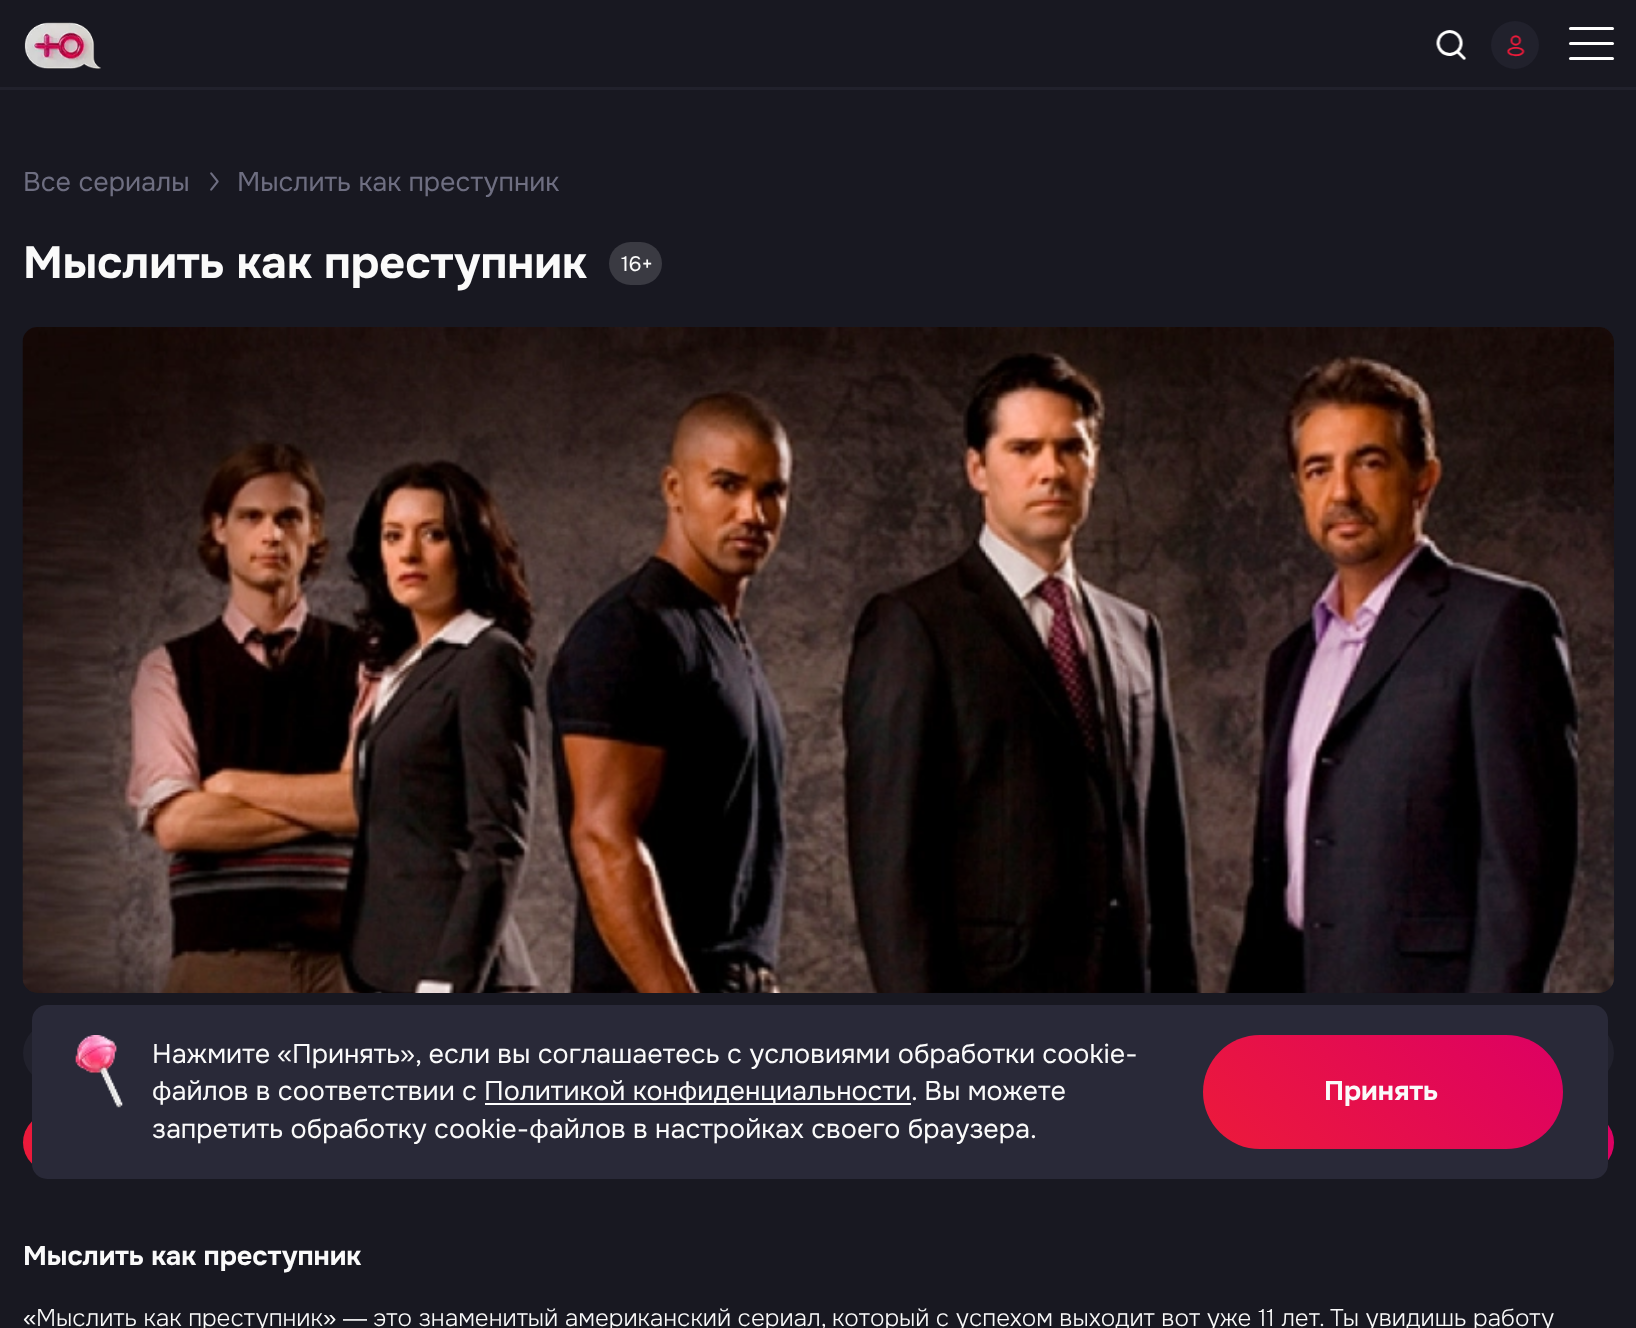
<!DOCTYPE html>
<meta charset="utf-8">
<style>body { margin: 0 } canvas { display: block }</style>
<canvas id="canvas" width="1636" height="1328"></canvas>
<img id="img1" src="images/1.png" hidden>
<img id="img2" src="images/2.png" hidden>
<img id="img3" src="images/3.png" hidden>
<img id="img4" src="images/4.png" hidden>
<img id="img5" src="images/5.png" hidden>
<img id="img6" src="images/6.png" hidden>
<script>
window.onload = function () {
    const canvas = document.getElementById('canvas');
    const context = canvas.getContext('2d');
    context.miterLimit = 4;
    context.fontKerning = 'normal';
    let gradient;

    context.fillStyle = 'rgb(24, 24, 33)';
    context.fillRect(0, 0, 1636, 1328);
    context.fillStyle = 'rgb(33, 33, 44)';
    context.fillRect(0, 87, 1636, 3);
    context.drawImage(document.getElementById('img1'), 24, 22, 77, 47);
    context.drawImage(document.getElementById('img2'), 1436, 30, 31, 30);
    context.beginPath();
    context.arc(1515, 45, 24, 0, 2 * Math.PI);
    context.fill();
    context.drawImage(document.getElementById('img3'), 1506, 35, 19, 22);
    context.fillStyle = 'rgb(255, 255, 255)';
    context.beginPath();
    context.roundRect(1569, 27, 45, 3, 1.5);
    context.fill();
    context.beginPath();
    context.roundRect(1569, 42, 45, 3, 1.5);
    context.fill();
    context.beginPath();
    context.roundRect(1569, 57, 45, 3, 1.5);
    context.fill();
    context.drawImage(document.getElementById('img4'), 210, 172, 9, 19);
    context.fillStyle = 'rgb(58, 58, 66)';
    context.beginPath();
    context.roundRect(609, 242, 53, 43, 21.5);
    context.fill();
    context.fillStyle = 'rgb(33, 33, 44)';
    context.beginPath();
    context.roundRect(23, 327, 1591, 666, 15);
    context.fill();
    context.drawImage(document.getElementById('img5'), 22, 327, 1592, 666);
    context.beginPath();
    context.roundRect(23, 1023, 1591, 60, 30);
    context.fill();
    gradient = context.createLinearGradient(406, 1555, 1231, 730);
    gradient.addColorStop(0, 'rgb(236, 26, 58)');
    gradient.addColorStop(1, 'rgb(221, 0, 99)');
    context.fillStyle = gradient;
    context.beginPath();
    context.roundRect(23, 1113, 1591, 59, 29.5);
    context.fill();
    context.fillStyle = 'rgb(41, 41, 56)';
    context.beginPath();
    context.roundRect(32, 1005, 1576, 174, 15);
    context.fill();
    context.drawImage(document.getElementById('img6'), 75, 1035, 48, 73);
    context.fillStyle = 'rgb(255, 255, 255)';
    context.fillRect(485, 1103, 426, 2);
    gradient = context.createLinearGradient(1264, 1211, 1501, 974);
    gradient.addColorStop(0, 'rgb(236, 26, 58)');
    gradient.addColorStop(1, 'rgb(221, 0, 99)');
    context.fillStyle = gradient;
    context.beginPath();
    context.roundRect(1203, 1035, 360, 114, 57);
    context.fill();
    context.font = '27px Onest';
    context.fillStyle = 'rgb(110, 110, 129)';
    context.fillText('Все сериалы', 23, 191);
    context.fillText('Мыслить как преступник', 237, 191);
    context.font = 'bold 45px Onest';
    context.fillStyle = 'rgb(250, 250, 250)';
    context.fillText('Мыслить как преступник', 23, 278);
    context.font = '21px Onest';
    context.fillText('16+', 621, 271);
    context.font = 'bold 27px Onest';
    context.fillText('Мыслить как преступник', 23, 1265);
    context.font = '24px Liberation Sans';
    context.fillText('«', 23, 1326);
    context.font = '300 24px Onest';
    context.fillText('Мыслить как преступник', 36, 1326);
    context.font = '24px Liberation Sans';
    context.fillText('» ―', 323, 1326);
    context.font = '300 24px Onest';
    context.fillText('это знаменитый американский сериал, который с успехом выходит вот уже 11 лет. Ты увидишь работу', 373, 1326);
    context.font = '27px Onest';
    context.fillText('Нажмите', 152, 1063);
    context.font = '27px Liberation Sans';
    context.fillText('«', 277, 1063);
    context.font = '27px Onest';
    context.fillText('Принять', 292, 1063);
    context.font = '27px Liberation Sans';
    context.fillText('»', 400, 1063);
    context.font = '27px Onest';
    context.fillText(', если вы соглашаетесь с условиями обработки cookie-', 415, 1063);
    context.fillText('файлов в соответствии с', 152, 1100);
    context.fillText('Политикой конфиденциальности', 484, 1100);
    context.fillText('. Вы можете', 911, 1100);
    context.fillText('запретить обработку cookie-файлов в настройках своего браузера.', 152, 1138);
    context.font = 'bold 27px Onest';
    context.fillText('Принять', 1324, 1100);
};
</script>
